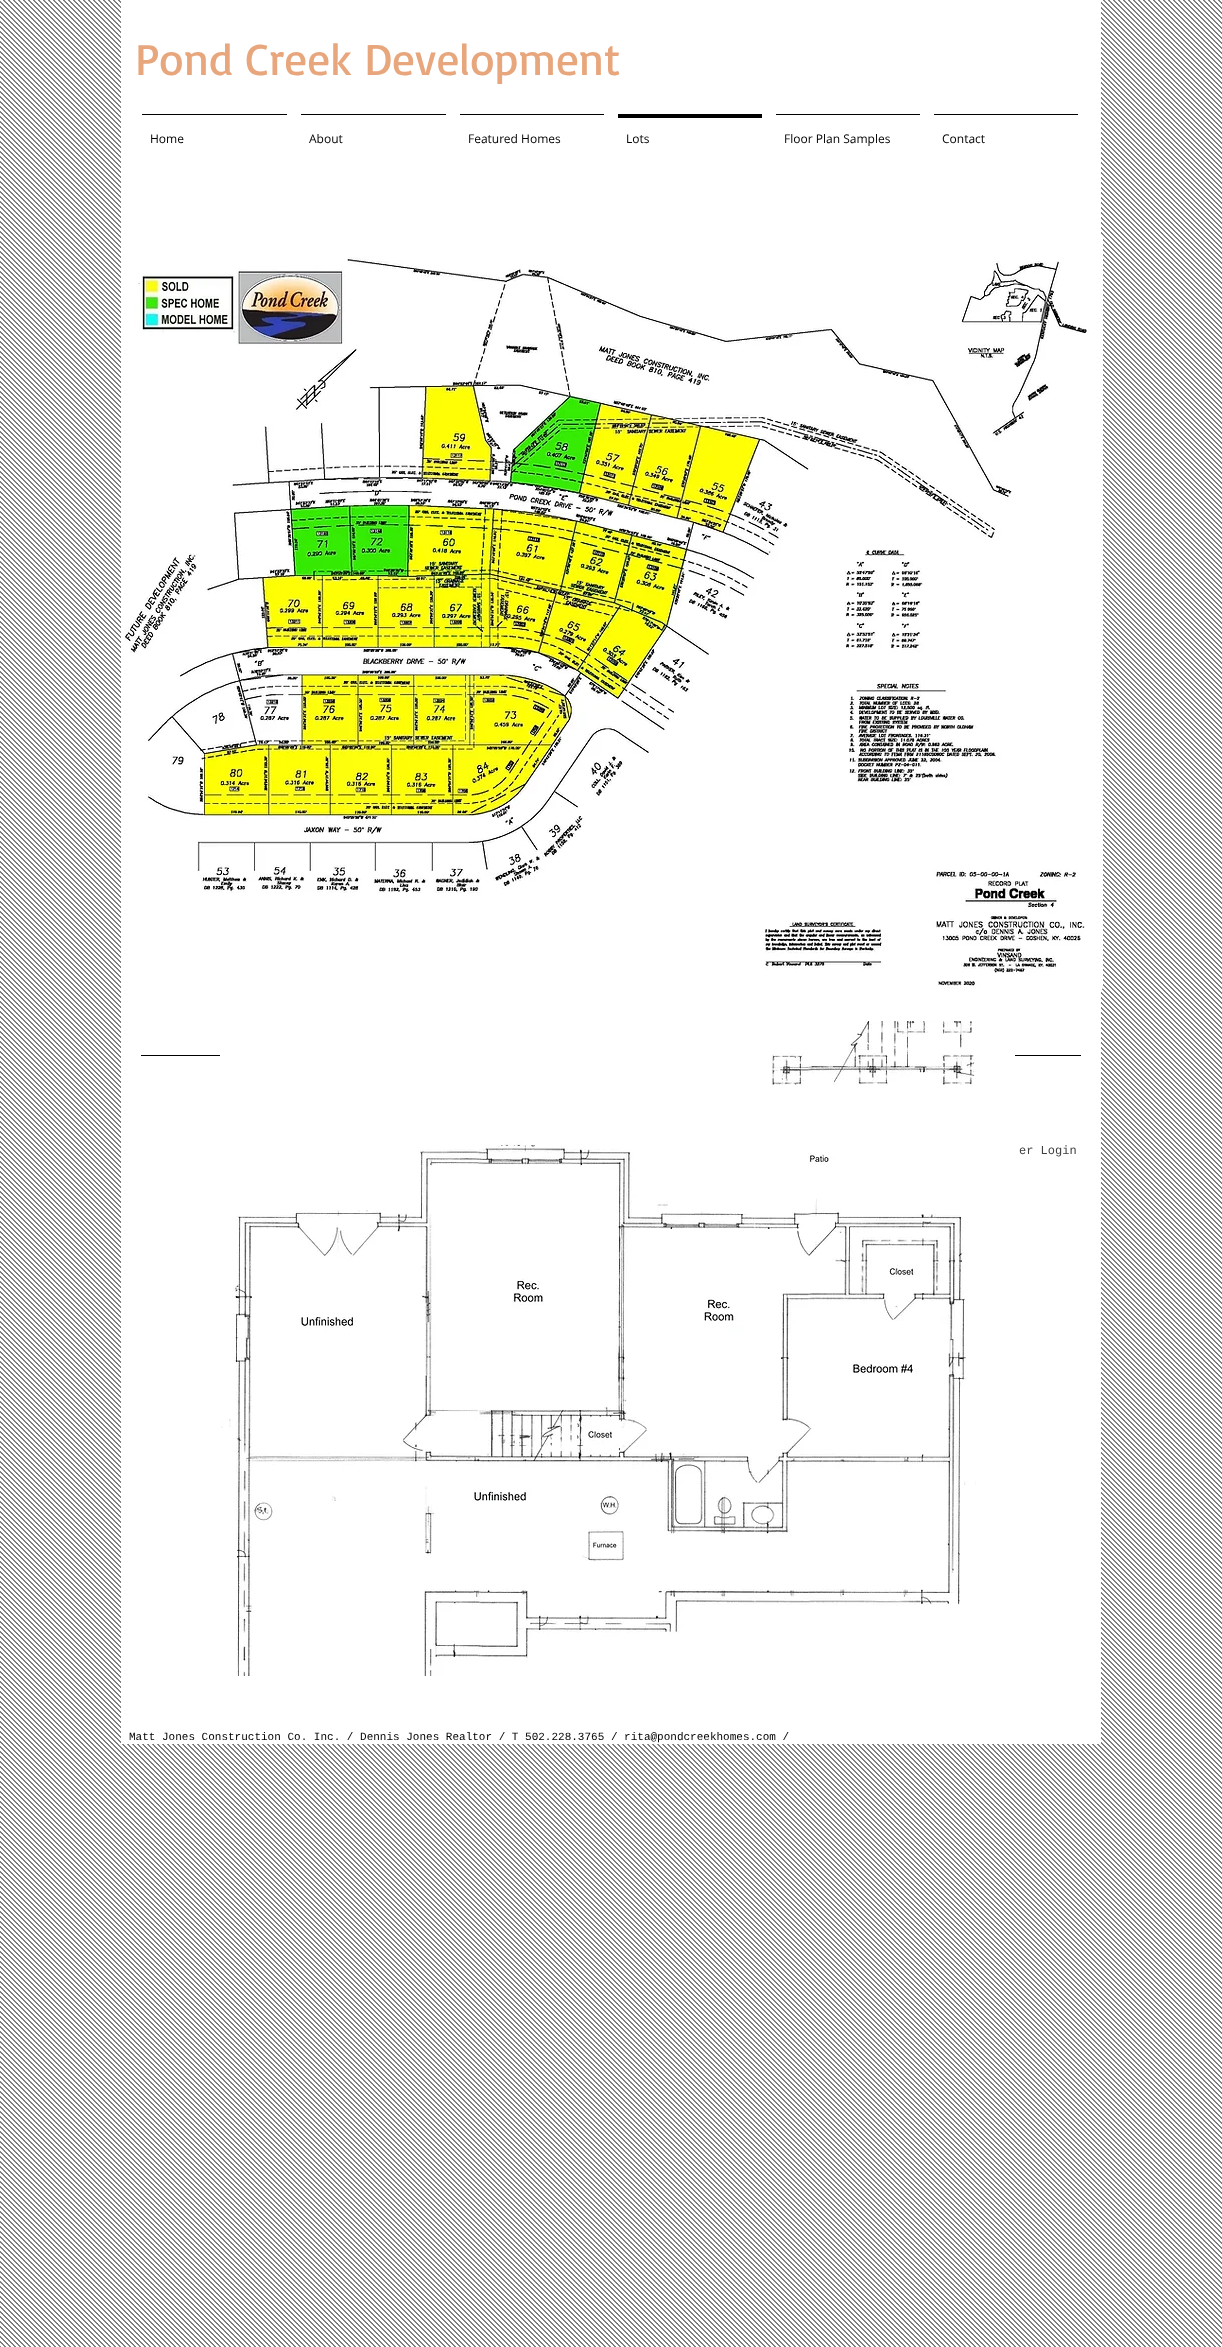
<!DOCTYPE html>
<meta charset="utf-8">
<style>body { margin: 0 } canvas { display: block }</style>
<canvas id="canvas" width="1222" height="2347"></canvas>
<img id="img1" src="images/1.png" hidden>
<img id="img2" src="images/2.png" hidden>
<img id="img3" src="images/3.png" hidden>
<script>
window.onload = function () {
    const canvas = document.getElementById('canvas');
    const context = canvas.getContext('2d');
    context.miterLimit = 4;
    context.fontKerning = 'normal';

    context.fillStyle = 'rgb(255, 255, 255)';
    context.fillRect(0, 0, 1222, 2347);
    context.drawImage(document.getElementById('img1'), 0, 0, 1222, 2347);
    context.fillRect(121, 0, 980, 1744);
    context.fillStyle = 'rgb(0, 0, 0)';
    context.fillRect(142, 114, 145, 1);
    context.fillRect(301, 114, 145, 1);
    context.fillRect(460, 114, 144, 1);
    context.fillRect(618, 114, 144, 4);
    context.fillRect(776, 114, 144, 1);
    context.fillRect(934, 114, 144, 1);
    context.drawImage(document.getElementById('img2'), 125, 237, 978, 753);
    context.fillRect(141, 1055, 940, 1);
    context.drawImage(document.getElementById('img3'), 220, 1021, 795, 655);
    context.font = '45px Basic';
    context.fillStyle = 'rgb(232, 166, 125)';
    context.fillText('Pond Creek Development', 135, 75);
    context.font = '12px Open Sans';
    context.fillStyle = 'rgb(0, 0, 0)';
    context.fillText('Home', 150, 143);
    context.fillText('About', 309, 143);
    context.fillText('Featured Homes', 468, 143);
    context.fillText('Lots', 626, 143);
    context.fillText('Floor Plan Samples', 784, 143);
    context.fillText('Contact', 942, 143);
    context.font = '12px Liberation Mono';
    context.fillStyle = 'rgb(64, 64, 64)';
    context.fillText('er Login', 1019, 1154);
    context.font = '11px Liberation Mono';
    context.fillStyle = 'rgb(0, 0, 0)';
    context.fillText('Matt Jones Construction Co. Inc. / Dennis Jones Realtor / T 502.228.3765 / rita@pondcreekhomes.com /', 129, 1740);
};
</script>
